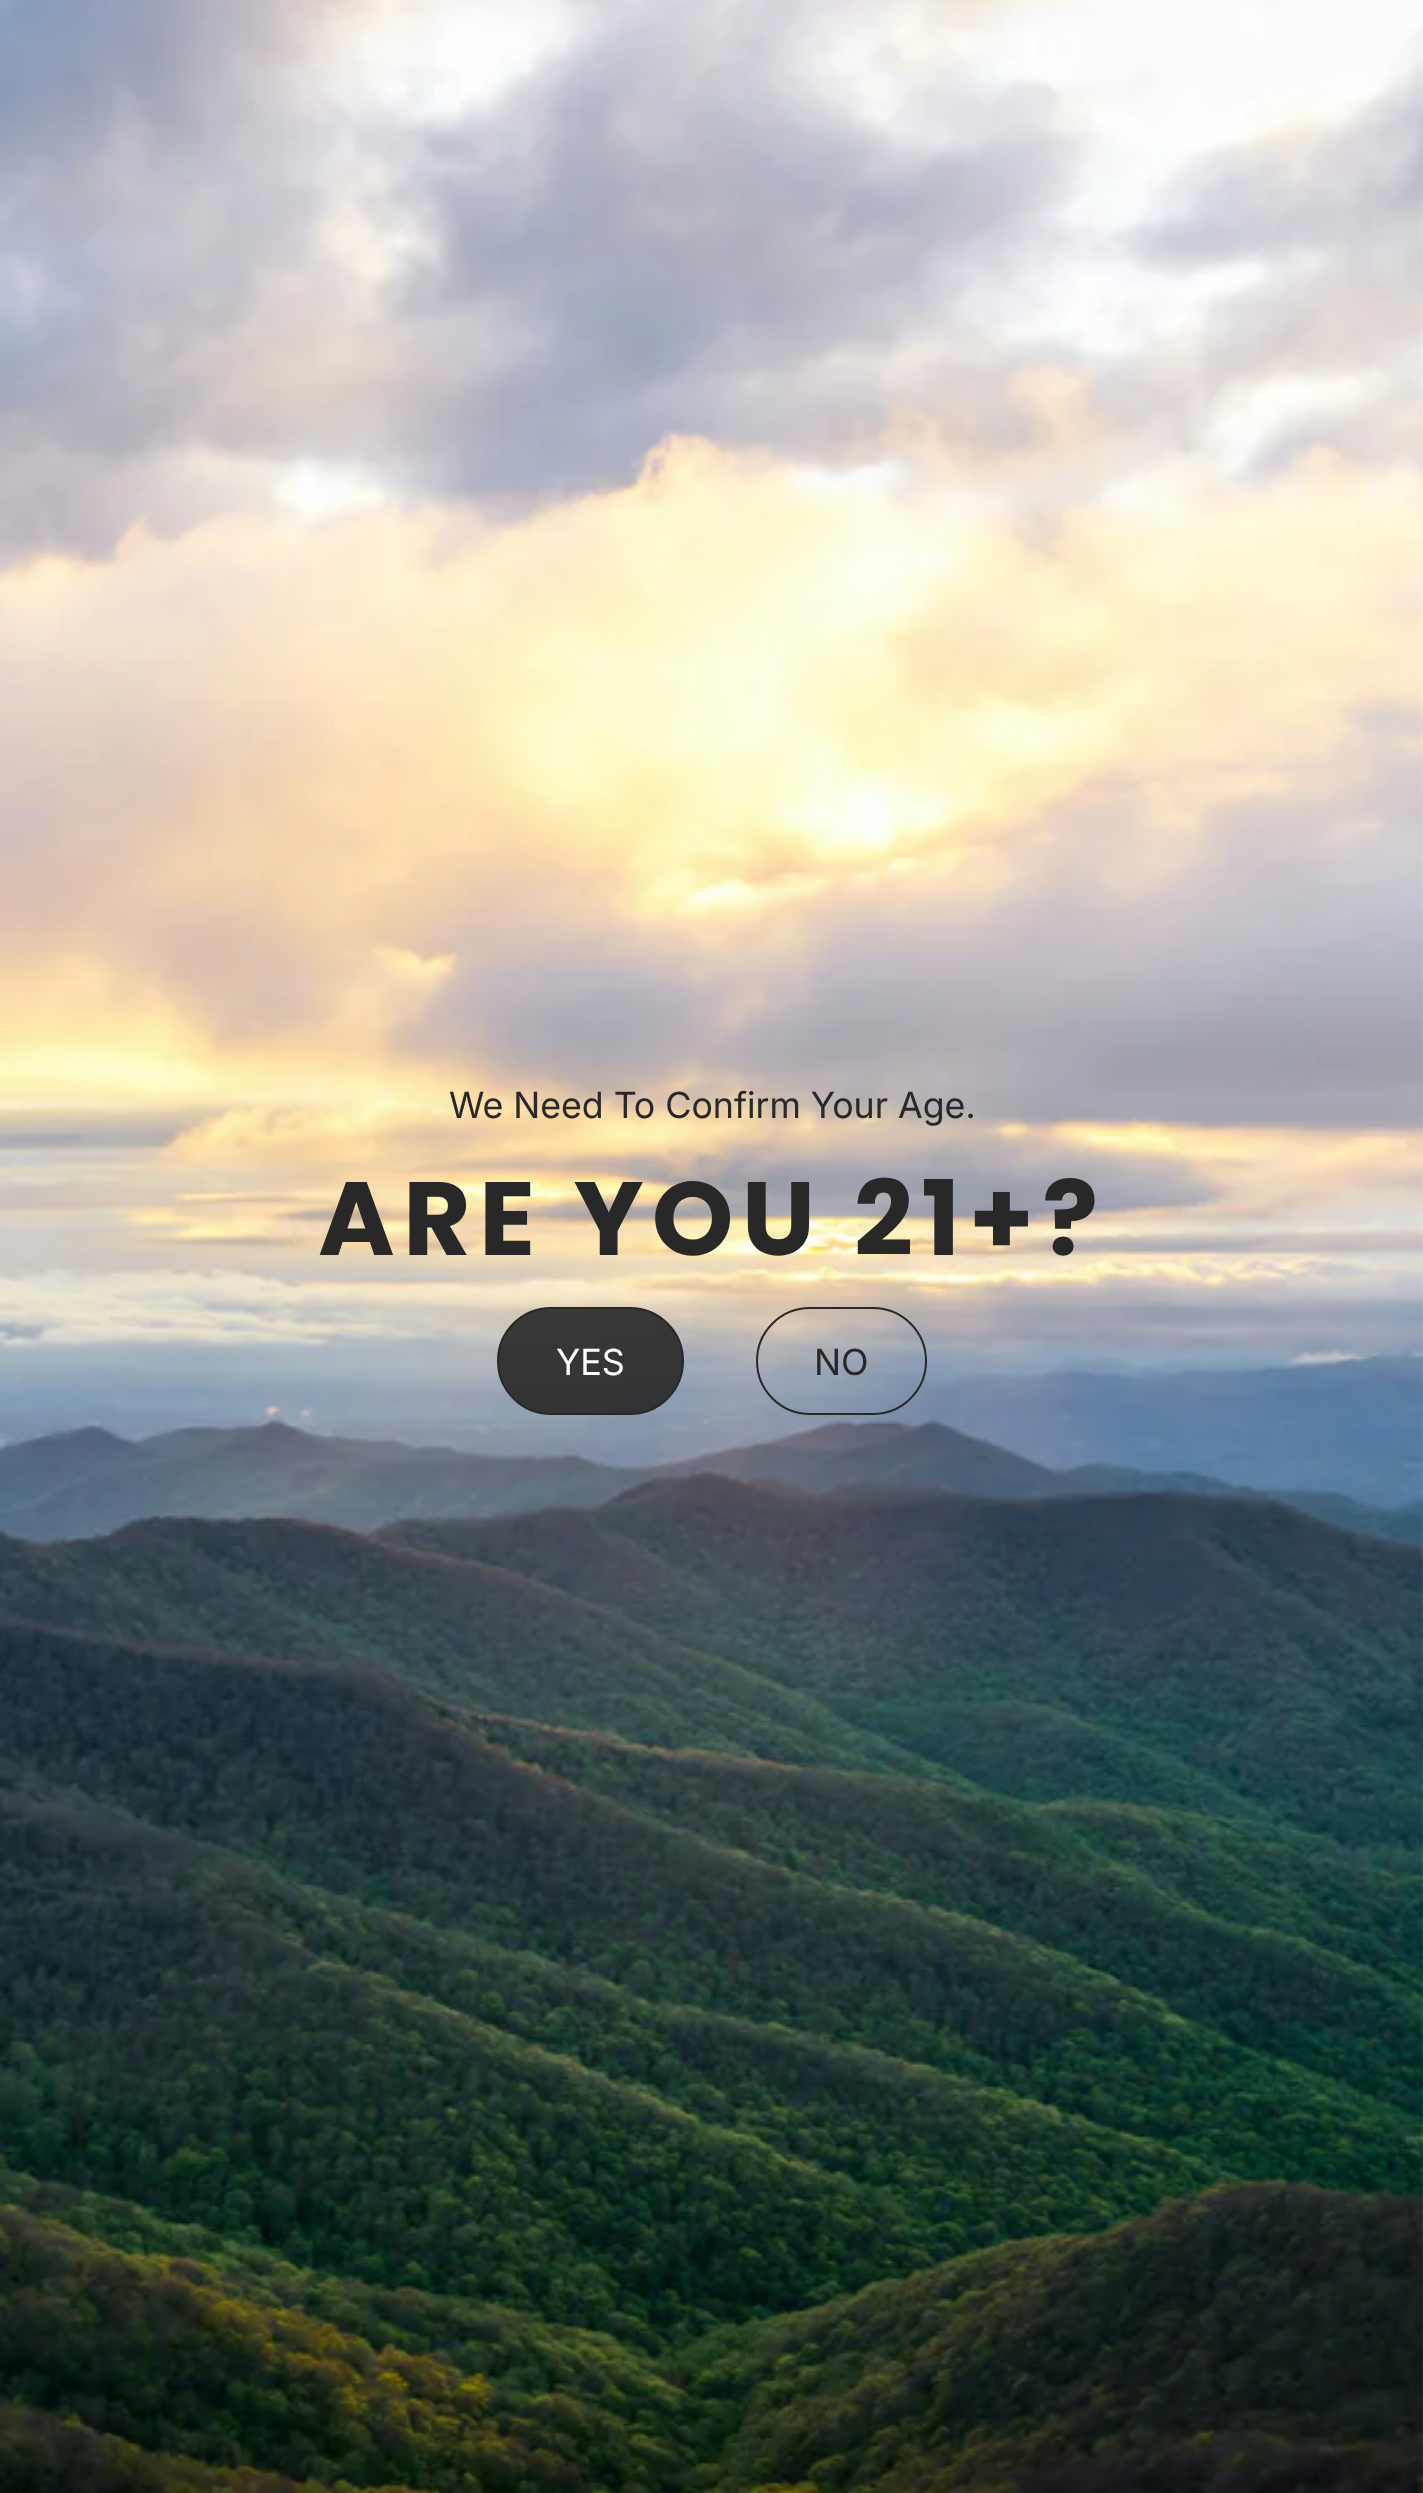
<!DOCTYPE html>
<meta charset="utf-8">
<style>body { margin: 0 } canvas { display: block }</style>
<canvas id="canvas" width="1423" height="2493"></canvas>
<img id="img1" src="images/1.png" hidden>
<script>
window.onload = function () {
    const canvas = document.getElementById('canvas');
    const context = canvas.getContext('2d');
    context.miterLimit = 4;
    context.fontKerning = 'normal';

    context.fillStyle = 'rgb(255, 255, 255)';
    context.fillRect(0, 0, 1423, 2493);
    context.fillStyle = 'rgba(0, 0, 0, 0.2)';
    context.filter = 'blur(17px)';
    context.beginPath();
    context.rect(0, 5, 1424, 227);
    context.fill();
    context.filter = 'none';
    context.drawImage(document.getElementById('img1'), 0, 0, 1423, 2493);
    context.fillStyle = 'rgba(40, 40, 40, 0.9)';
    context.beginPath();
    context.roundRect(498, 1308, 185, 106, 53);
    context.fill();
    context.strokeStyle = 'rgb(40, 40, 40)';
    context.lineWidth = 2;
    context.stroke();
    context.beginPath();
    context.roundRect(757, 1308, 169, 106, 53);
    context.stroke();
    context.font = '36px Inter';
    context.fillStyle = 'rgb(40, 40, 40)';
    context.fillText('We Need To Confirm Your Age.', 449, 1118);
    context.letterSpacing = '8.25px';
    context.font = 'bold 104px Poppins';
    context.fillText('ARE YOU 21+?', 318, 1255);
    context.letterSpacing = '0px';
    context.font = '36px Inter';
    context.fillStyle = 'rgb(255, 255, 255)';
    context.fillText('YES', 556, 1375);
    context.font = '36px "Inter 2"';
    context.fillStyle = 'rgb(40, 40, 40)';
    context.fillText('NO', 814, 1375);
};
</script>
